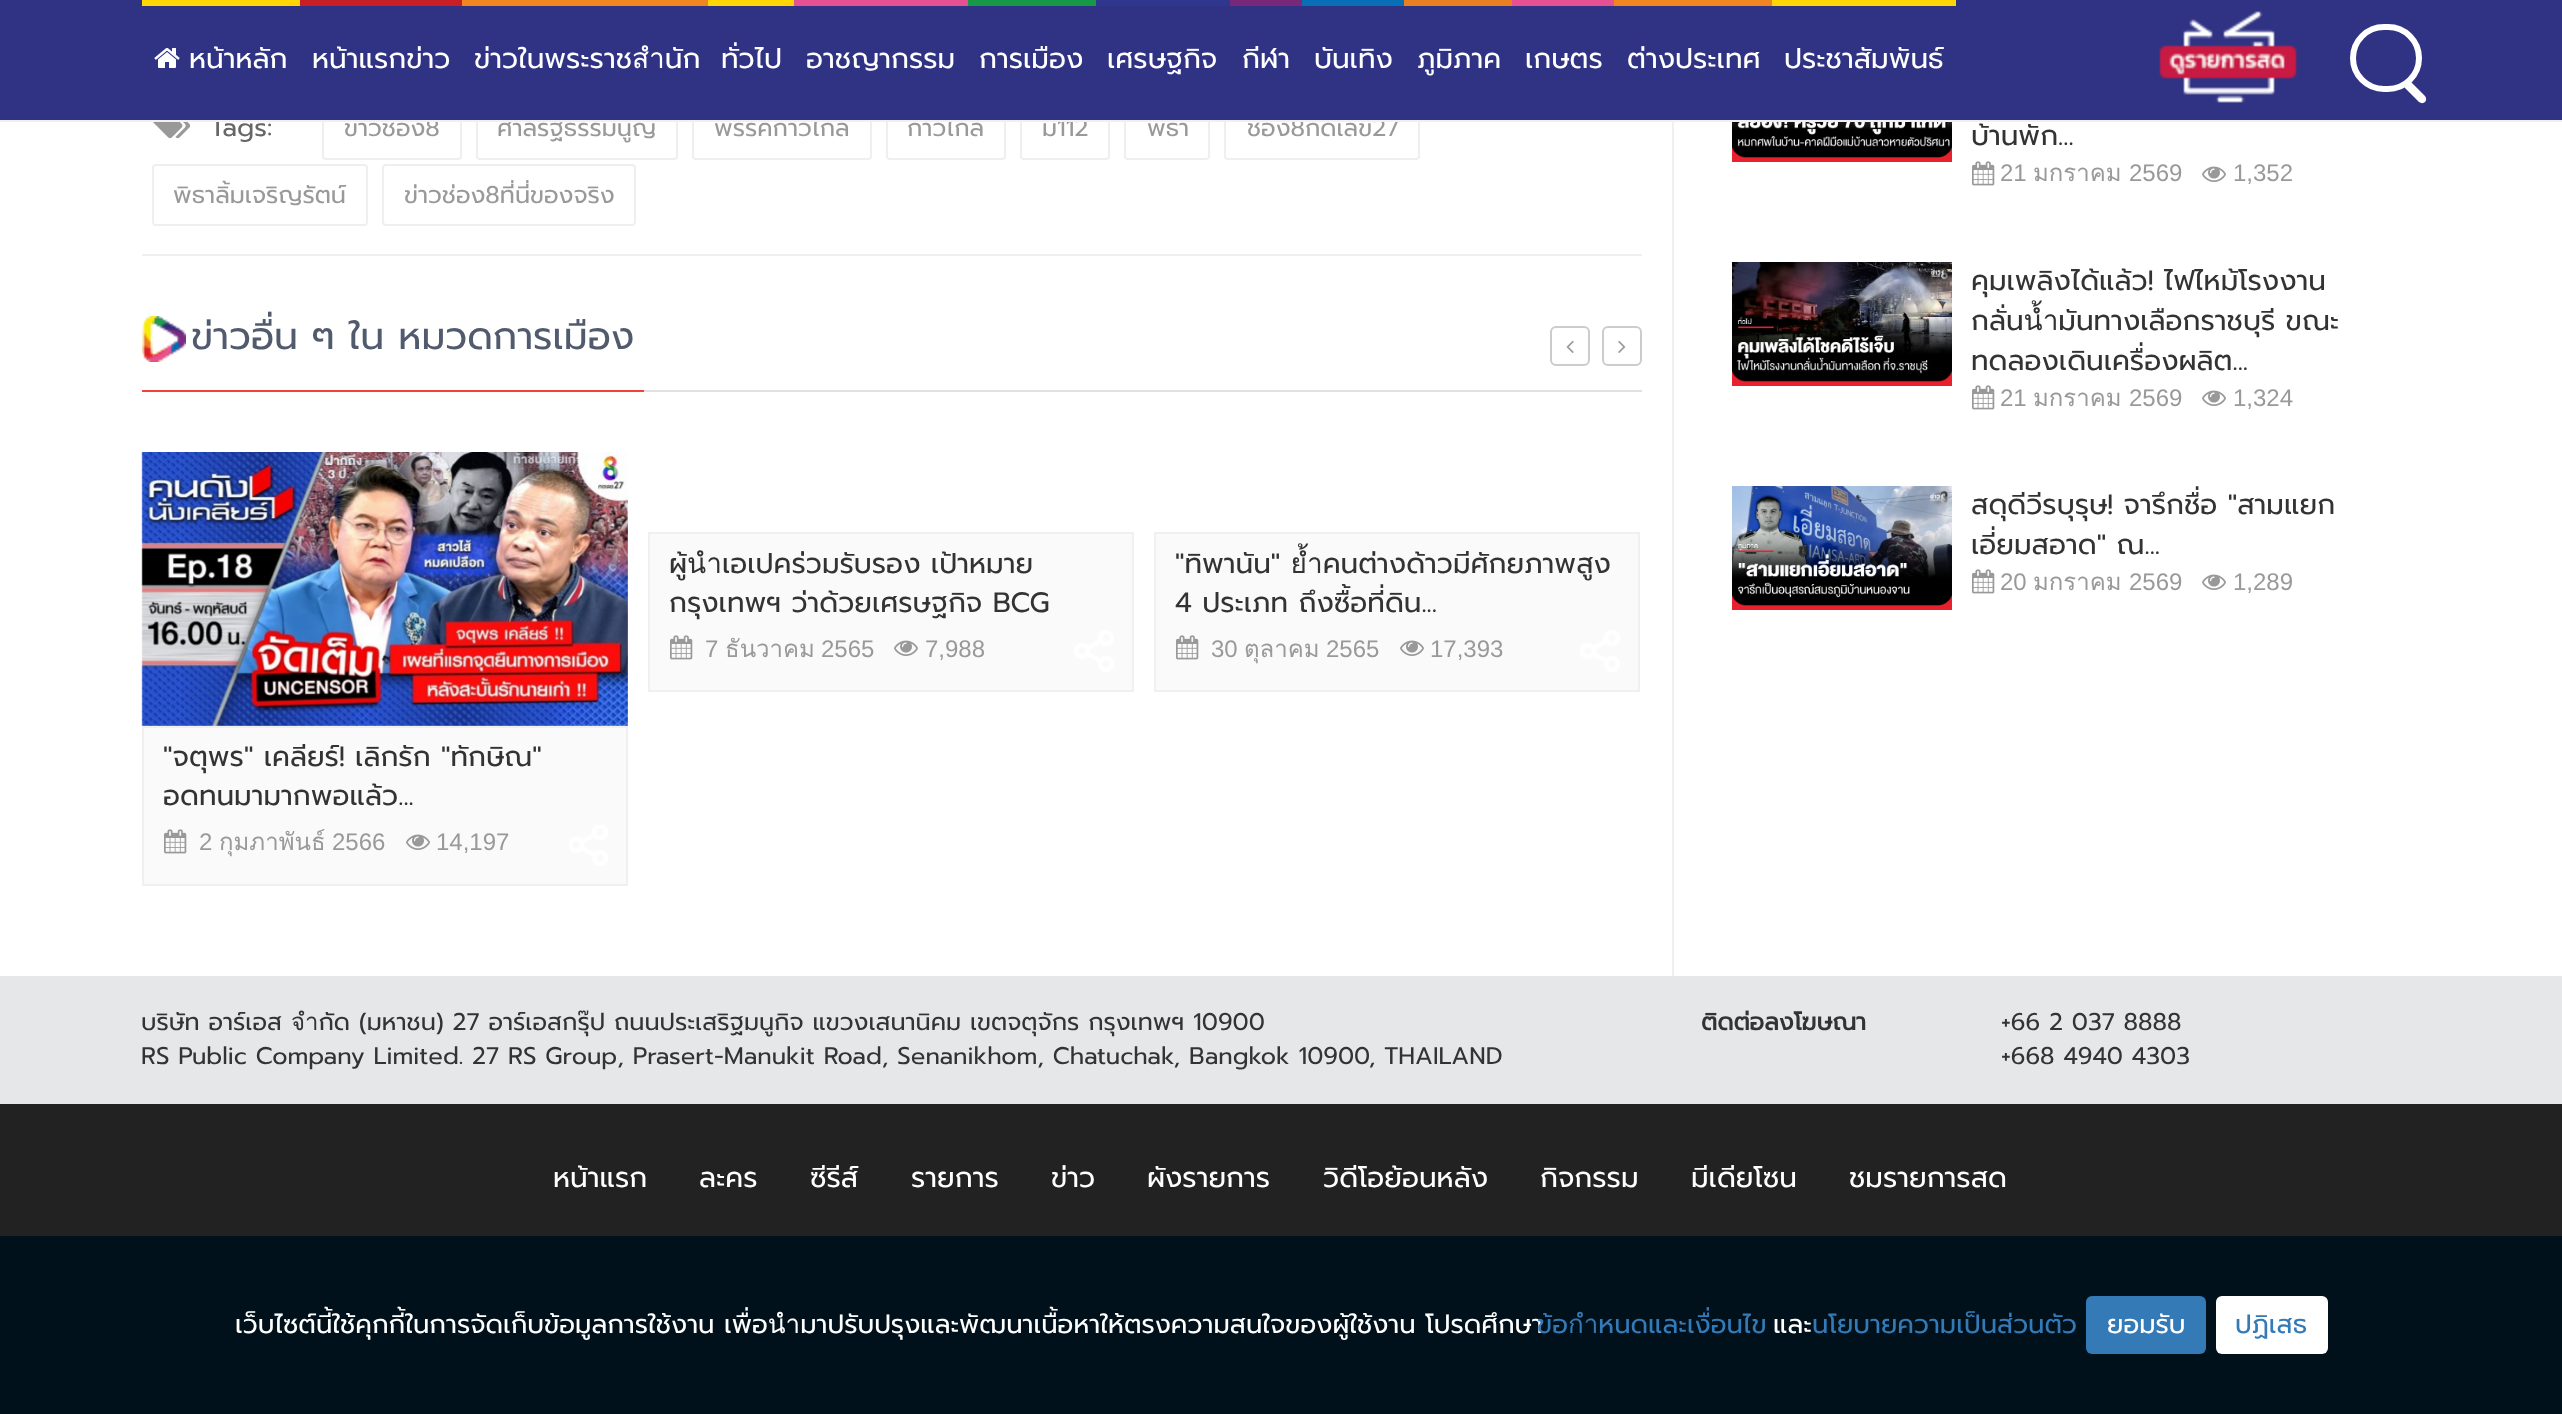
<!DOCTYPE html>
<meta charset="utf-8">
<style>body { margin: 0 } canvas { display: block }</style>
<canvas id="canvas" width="2562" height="1414"></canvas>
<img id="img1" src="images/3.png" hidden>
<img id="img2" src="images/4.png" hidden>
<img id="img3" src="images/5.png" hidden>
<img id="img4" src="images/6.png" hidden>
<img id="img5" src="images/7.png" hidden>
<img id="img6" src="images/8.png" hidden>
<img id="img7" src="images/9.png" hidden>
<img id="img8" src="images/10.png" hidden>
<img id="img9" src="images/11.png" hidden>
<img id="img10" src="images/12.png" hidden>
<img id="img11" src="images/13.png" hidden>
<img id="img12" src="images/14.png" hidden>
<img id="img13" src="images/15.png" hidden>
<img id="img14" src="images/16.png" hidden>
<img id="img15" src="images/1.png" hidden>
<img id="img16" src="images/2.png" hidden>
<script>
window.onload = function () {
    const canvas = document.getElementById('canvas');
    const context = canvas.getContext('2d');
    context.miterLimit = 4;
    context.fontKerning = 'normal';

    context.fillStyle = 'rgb(255, 255, 255)';
    context.fillRect(0, 0, 2562, 1414);
    context.fillStyle = 'rgb(240, 240, 240)';
    context.fillRect(142, 254, 1500, 2);
    context.drawImage(document.getElementById('img1'), 153, 122, 38, 17);
    context.beginPath();
    context.roundRect(323, 99, 138, 60, 3);
    context.strokeStyle = 'rgb(239, 239, 239)';
    context.lineWidth = 2;
    context.stroke();
    context.beginPath();
    context.roundRect(477, 99, 200, 60, 3);
    context.stroke();
    context.beginPath();
    context.roundRect(693, 99, 178, 60, 3);
    context.stroke();
    context.beginPath();
    context.roundRect(887, 99, 118, 60, 3);
    context.stroke();
    context.beginPath();
    context.roundRect(1021, 99, 88, 60, 3);
    context.stroke();
    context.beginPath();
    context.roundRect(1125, 99, 84, 60, 3);
    context.stroke();
    context.beginPath();
    context.roundRect(1225, 99, 194, 60, 3);
    context.stroke();
    context.beginPath();
    context.roundRect(153, 165, 214, 60, 3);
    context.stroke();
    context.beginPath();
    context.roundRect(383, 165, 252, 60, 3);
    context.stroke();
    context.fillStyle = 'rgb(225, 225, 225)';
    context.fillRect(644, 390, 998, 2);
    context.drawImage(document.getElementById('img2'), 142, 316, 44, 46);
    context.fillStyle = 'rgb(244, 67, 54)';
    context.fillRect(142, 390, 502, 2);
    context.beginPath();
    context.roundRect(1551, 327, 38, 38, 5);
    context.strokeStyle = 'rgb(204, 204, 204)';
    context.stroke();
    context.drawImage(document.getElementById('img3'), 1566, 340, 8, 13);
    context.beginPath();
    context.roundRect(1603, 327, 38, 38, 5);
    context.stroke();
    context.drawImage(document.getElementById('img4'), 1618, 340, 8, 13);
    context.fillStyle = 'rgb(250, 250, 250)';
    context.beginPath();
    context.rect(649, 533, 484, 158);
    context.fill();
    context.strokeStyle = 'rgb(240, 240, 240)';
    context.stroke();
    context.drawImage(document.getElementById('img5'), 670, 635, 23, 25);
    context.drawImage(document.getElementById('img6'), 894, 640, 24, 16);
    context.drawImage(document.getElementById('img7'), 1074, 630, 40, 42);
    context.beginPath();
    context.rect(1155, 533, 484, 158);
    context.fill();
    context.stroke();
    context.drawImage(document.getElementById('img5'), 1176, 635, 23, 25);
    context.drawImage(document.getElementById('img6'), 1400, 640, 24, 16);
    context.drawImage(document.getElementById('img7'), 1580, 630, 40, 42);
    context.drawImage(document.getElementById('img8'), 141, 452, 487, 274);
    context.beginPath();
    context.rect(143, 727, 484, 158);
    context.fill();
    context.stroke();
    context.drawImage(document.getElementById('img9'), 569, 825, 39, 41);
    context.drawImage(document.getElementById('img5'), 164, 829, 23, 25);
    context.drawImage(document.getElementById('img6'), 406, 834, 24, 16);
    context.fillStyle = 'rgb(240, 240, 240)';
    context.fillRect(1672, 122, 2, 854);
    context.drawImage(document.getElementById('img10'), 1732, 122, 220, 40);
    context.drawImage(document.getElementById('img11'), 1972, 161, 23, 25);
    context.drawImage(document.getElementById('img12'), 2202, 166, 24, 16);
    context.drawImage(document.getElementById('img13'), 1732, 262, 220, 124);
    context.drawImage(document.getElementById('img11'), 1972, 385, 23, 25);
    context.drawImage(document.getElementById('img12'), 2202, 390, 24, 16);
    context.drawImage(document.getElementById('img14'), 1732, 486, 220, 124);
    context.drawImage(document.getElementById('img11'), 1972, 569, 23, 25);
    context.drawImage(document.getElementById('img12'), 2202, 574, 24, 16);
    context.fillStyle = 'rgb(230, 231, 233)';
    context.fillRect(0, 976, 2562, 128);
    context.fillStyle = 'rgb(34, 34, 34)';
    context.fillRect(0, 1104, 2562, 132);
    context.fillStyle = 'rgb(0, 17, 27)';
    context.fillRect(0, 1236, 2562, 178);
    context.fillStyle = 'rgb(51, 122, 183)';
    context.beginPath();
    context.roundRect(2086, 1296, 120, 58, 6);
    context.fill();
    context.fillStyle = 'rgb(255, 255, 255)';
    context.beginPath();
    context.roundRect(2216, 1296, 112, 58, 6);
    context.fill();
    context.font = '26px Prompt';
    context.fillStyle = 'rgb(102, 102, 102)';
    context.fillText('Tags:', 210, 136);
    context.font = '24px Prompt';
    context.fillStyle = 'rgb(153, 153, 153)';
    context.fillText('ข่าวช่อง8', 344, 136);
    context.fillText('ศาลรัฐธรรมนูญ', 497, 136);
    context.fillText('พรรคก้าวไกล', 714, 136);
    context.fillText('ก้าวไกล', 907, 136);
    context.fillText('ม112', 1042, 136);
    context.fillText('พิธา', 1147, 136);
    context.fillText('ช่อง8กดเลข27', 1247, 136);
    context.fillStyle = 'rgb(48, 51, 132)';
    context.fillRect(0, 0, 2562, 120);
    context.font = '28px Prompt';
    context.fillStyle = 'rgb(255, 255, 255)';
    context.fillText('ประชาสัมพันธ์', 1784, 68);
    context.fillStyle = 'rgb(255, 213, 4)';
    context.fillRect(1772, 0, 184, 6);
    context.fillStyle = 'rgb(255, 255, 255)';
    context.fillText('ต่างประเทศ', 1627, 68);
    context.fillStyle = 'rgb(240, 133, 33)';
    context.fillRect(1614, 0, 158, 6);
    context.fillStyle = 'rgb(255, 255, 255)';
    context.fillText('เกษตร', 1525, 68);
    context.fillStyle = 'rgb(230, 81, 148)';
    context.fillRect(1512, 0, 102, 6);
    context.fillStyle = 'rgb(255, 255, 255)';
    context.fillText('ภูมิภาค', 1417, 68);
    context.fillStyle = 'rgb(233, 127, 35)';
    context.fillRect(1404, 0, 108, 6);
    context.fillStyle = 'rgb(255, 255, 255)';
    context.fillText('บันเทิง', 1314, 68);
    context.fillStyle = 'rgb(8, 110, 181)';
    context.fillRect(1302, 0, 102, 6);
    context.fillStyle = 'rgb(255, 255, 255)';
    context.fillText('กีฬา', 1242, 68);
    context.fillStyle = 'rgb(120, 40, 121)';
    context.fillRect(1230, 0, 72, 6);
    context.fillStyle = 'rgb(255, 255, 255)';
    context.fillText('เศรษฐกิจ', 1107, 68);
    context.fillStyle = 'rgb(47, 54, 142)';
    context.fillRect(1096, 0, 134, 6);
    context.fillStyle = 'rgb(255, 255, 255)';
    context.fillText('การเมือง', 979, 68);
    context.fillStyle = 'rgb(22, 152, 71)';
    context.fillRect(968, 0, 128, 6);
    context.fillStyle = 'rgb(255, 255, 255)';
    context.fillText('อาชญากรรม', 806, 68);
    context.fillStyle = 'rgb(230, 81, 148)';
    context.fillRect(794, 0, 174, 6);
    context.fillStyle = 'rgb(255, 255, 255)';
    context.fillText('ทั่วไป', 721, 68);
    context.fillStyle = 'rgb(255, 213, 4)';
    context.fillRect(708, 0, 86, 6);
    context.fillStyle = 'rgb(255, 255, 255)';
    context.fillText('ข่าวในพระราชสำนัก', 474, 68);
    context.fillStyle = 'rgb(240, 133, 33)';
    context.fillRect(462, 0, 246, 6);
    context.fillStyle = 'rgb(255, 255, 255)';
    context.fillText('หน้าแรกข่าว', 312, 68);
    context.fillStyle = 'rgb(200, 30, 37)';
    context.fillRect(300, 0, 162, 6);
    context.fillStyle = 'rgb(255, 255, 255)';
    context.fillText('หน้าหลัก', 189, 68);
    context.drawImage(document.getElementById('img15'), 154, 48, 26, 20);
    context.fillStyle = 'rgb(255, 213, 4)';
    context.fillRect(142, 0, 158, 6);
    context.beginPath();
    context.roundRect(2353, 27, 66, 62, 31);
    context.strokeStyle = 'rgb(255, 255, 255)';
    context.lineWidth = 6;
    context.stroke();
    context.fillStyle = 'rgb(255, 255, 255)';
    context.beginPath();
    context.moveTo(2411, 82);
    context.lineTo(2425, 96);
    context.bezierCurveTo(2426.5, 98, 2426.5, 100.5, 2425, 102);
    context.bezierCurveTo(2423.5, 103.5, 2421, 103.5, 2419, 102);
    context.lineTo(2405, 88);
    context.bezierCurveTo(2403.5, 86, 2403.5, 83.5, 2405, 82);
    context.bezierCurveTo(2406.5, 80.5, 2409, 80.5, 2411, 82);
    context.closePath();
    context.fill();
    context.drawImage(document.getElementById('img16'), 2159, 11, 138, 92);
    context.fillStyle = 'rgb(240, 240, 240)';
    context.fillRect(0, 120, 2562, 2);
    context.font = '24px Prompt';
    context.fillStyle = 'rgb(153, 153, 153)';
    context.fillText('พิธาลิ้มเจริญรัตน์', 173, 203);
    context.fillText('ข่าวช่อง8ที่นี่ของจริง', 404, 203);
    context.font = '38px Prompt';
    context.fillStyle = 'rgb(82, 91, 110)';
    context.fillText('ข่าวอื่น ๆ ใน หมวดการเมือง', 191, 349);
    context.font = '28px Prompt';
    context.fillStyle = 'rgb(51, 51, 51)';
    context.fillText('ผู้นำเอเปคร่วมรับรอง เป้าหมาย', 669, 573);
    context.fillText('กรุงเทพฯ ว่าด้วยเศรษฐกิจ BCG', 669, 612);
    context.font = '24px Liberation Sans';
    context.fillStyle = 'rgb(153, 153, 153)';
    context.fillText('7', 705, 657);
    context.font = '24px Loma';
    context.fillText('ธันวาคม', 725, 657);
    context.font = '24px Liberation Sans';
    context.fillText('2565', 821, 657);
    context.fillText('7,988', 925, 657);
    context.font = '28px Prompt';
    context.fillStyle = 'rgb(51, 51, 51)';
    context.fillText('"ทิพานัน" ย้ำคนต่างด้าวมีศักยภาพสูง', 1175, 573);
    context.fillText('4 ประเภท ถึงซื้อที่ดิน...', 1175, 612);
    context.font = '24px Liberation Sans';
    context.fillStyle = 'rgb(153, 153, 153)';
    context.fillText('30', 1211, 657);
    context.font = '24px Loma';
    context.fillText('ตุลาคม', 1244, 657);
    context.font = '24px Liberation Sans';
    context.fillText('2565', 1326, 657);
    context.fillText('17,393', 1430, 657);
    context.font = '28px Prompt';
    context.fillStyle = 'rgb(51, 51, 51)';
    context.fillText('"จตุพร" เคลียร์! เลิกรัก "ทักษิณ"', 163, 766);
    context.fillText('อดทนมามากพอแล้ว...', 163, 805);
    context.font = '24px Liberation Sans';
    context.fillStyle = 'rgb(153, 153, 153)';
    context.fillText('2', 199, 850);
    context.font = '24px Loma';
    context.fillText('กุมภาพันธ์', 219, 850);
    context.font = '24px Liberation Sans';
    context.fillText('2566', 332, 850);
    context.fillText('14,197', 436, 850);
    context.font = '28px Prompt';
    context.fillStyle = 'rgb(51, 51, 51)';
    context.fillText('บ้านพัก...', 1971, 145);
    context.font = '24px Liberation Sans';
    context.fillStyle = 'rgb(153, 153, 153)';
    context.fillText('21', 2000, 181);
    context.font = '24px Loma';
    context.fillText('มกราคม', 2033, 181);
    context.font = '24px Liberation Sans';
    context.fillText('2569', 2129, 181);
    context.fillText('1,352', 2233, 181);
    context.font = '28px Prompt';
    context.fillStyle = 'rgb(51, 51, 51)';
    context.fillText('คุมเพลิงได้แล้ว! ไฟไหม้โรงงาน', 1971, 290);
    context.fillText('กลั่นน้ำมันทางเลือกราชบุรี ขณะ', 1971, 330);
    context.fillText('ทดลองเดินเครื่องผลิต...', 1971, 370);
    context.font = '24px Liberation Sans';
    context.fillStyle = 'rgb(153, 153, 153)';
    context.fillText('21', 2000, 406);
    context.font = '24px Loma';
    context.fillText('มกราคม', 2033, 406);
    context.font = '24px Liberation Sans';
    context.fillText('2569', 2129, 406);
    context.fillText('1,324', 2233, 406);
    context.font = '28px Prompt';
    context.fillStyle = 'rgb(51, 51, 51)';
    context.fillText('สดุดีวีรบุรุษ! จารึกชื่อ "สามแยก', 1971, 514);
    context.fillText('เอี่ยมสอาด" ณ...', 1971, 554);
    context.font = '24px Liberation Sans';
    context.fillStyle = 'rgb(153, 153, 153)';
    context.fillText('20', 2000, 590);
    context.font = '24px Loma';
    context.fillText('มกราคม', 2033, 590);
    context.font = '24px Liberation Sans';
    context.fillText('2569', 2129, 590);
    context.fillText('1,289', 2233, 590);
    context.font = '24px Prompt';
    context.fillStyle = 'rgb(51, 51, 51)';
    context.fillText('บริษัท อาร์เอส จำกัด (มหาชน) 27 อาร์เอสกรุ๊ป ถนนประเสริฐมนูกิจ แขวงเสนานิคม เขตจตุจักร กรุงเทพฯ 10900', 141, 1030);
    context.fillText('RS Public Company Limited. 27 RS Group, Prasert-Manukit Road, Senanikhom, Chatuchak, Bangkok 10900, THAILAND', 141, 1064);
    context.font = 'bold 24px Prompt';
    context.fillText('ติดต่อลงโฆษณา', 1701, 1030);
    context.font = '24px Prompt';
    context.fillText('+66 2 037 8888', 2001, 1030);
    context.fillText('+668 4940 4303', 2001, 1064);
    context.font = '28px Prompt';
    context.fillStyle = 'rgb(255, 255, 255)';
    context.fillText('หน้าแรก', 553, 1187);
    context.fillText('ละคร', 699, 1187);
    context.fillText('ซีรีส์', 810, 1187);
    context.fillText('รายการ', 911, 1187);
    context.fillText('ข่าว', 1051, 1187);
    context.fillText('ผังรายการ', 1147, 1187);
    context.fillText('วิดีโอย้อนหลัง', 1323, 1187);
    context.fillText('กิจกรรม', 1540, 1187);
    context.fillText('มีเดียโซน', 1691, 1187);
    context.fillText('ชมรายการสด', 1849, 1187);
    context.font = '26px Prompt';
    context.fillText('เว็บไซต์นี้ใช้คุกกี้ในการจัดเก็บข้อมูลการใช้งาน เพื่อนำมาปรับปรุงและพัฒนาเนื้อหาให้ตรงความสนใจของผู้ใช้งาน โปรดศึกษา', 235, 1333);
    context.fillStyle = 'rgb(51, 122, 183)';
    context.fillText('ข้อกำหนดและเงื่อนไข', 1537, 1333);
    context.fillStyle = 'rgb(255, 255, 255)';
    context.fillText('และ', 1773, 1333);
    context.fillStyle = 'rgb(51, 122, 183)';
    context.fillText('นโยบายความเป็นส่วนตัว', 1812, 1333);
    context.fillStyle = 'rgb(255, 255, 255)';
    context.fillText('ยอมรับ', 2107, 1333);
    context.fillStyle = 'rgb(51, 122, 183)';
    context.fillText('ปฏิเสธ', 2235, 1333);
};
</script>
